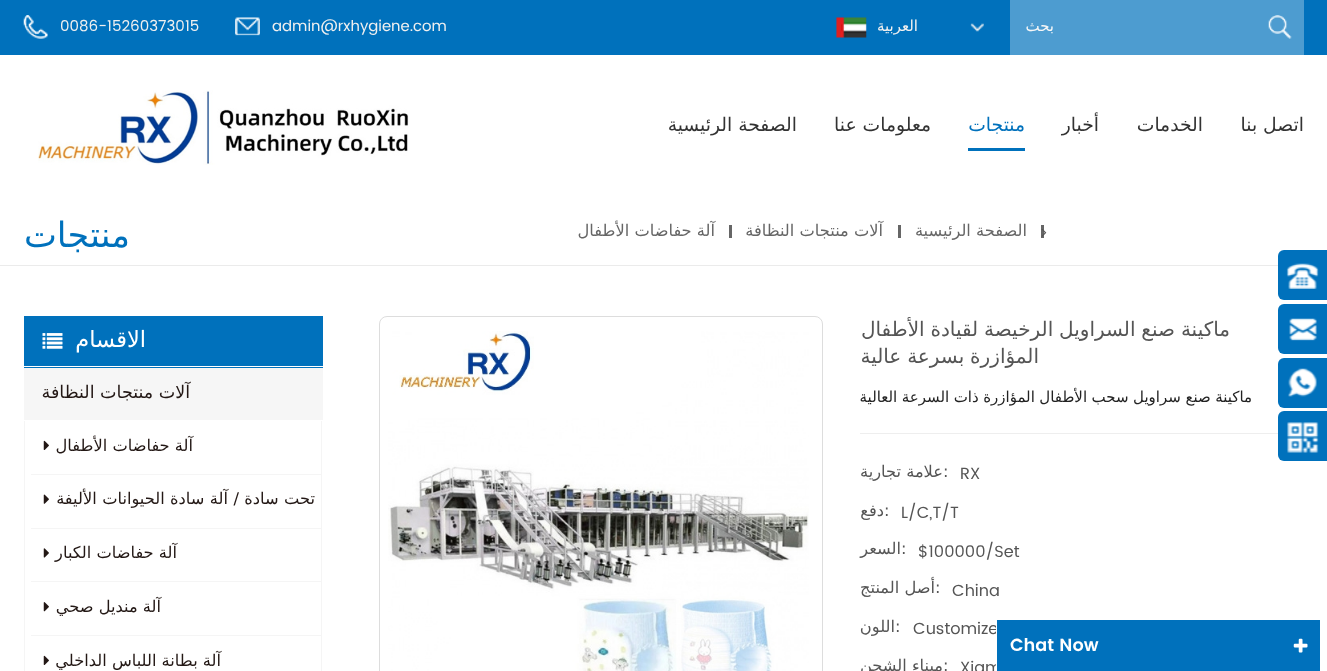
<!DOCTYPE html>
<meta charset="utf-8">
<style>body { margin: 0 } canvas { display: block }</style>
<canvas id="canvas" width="1327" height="671"></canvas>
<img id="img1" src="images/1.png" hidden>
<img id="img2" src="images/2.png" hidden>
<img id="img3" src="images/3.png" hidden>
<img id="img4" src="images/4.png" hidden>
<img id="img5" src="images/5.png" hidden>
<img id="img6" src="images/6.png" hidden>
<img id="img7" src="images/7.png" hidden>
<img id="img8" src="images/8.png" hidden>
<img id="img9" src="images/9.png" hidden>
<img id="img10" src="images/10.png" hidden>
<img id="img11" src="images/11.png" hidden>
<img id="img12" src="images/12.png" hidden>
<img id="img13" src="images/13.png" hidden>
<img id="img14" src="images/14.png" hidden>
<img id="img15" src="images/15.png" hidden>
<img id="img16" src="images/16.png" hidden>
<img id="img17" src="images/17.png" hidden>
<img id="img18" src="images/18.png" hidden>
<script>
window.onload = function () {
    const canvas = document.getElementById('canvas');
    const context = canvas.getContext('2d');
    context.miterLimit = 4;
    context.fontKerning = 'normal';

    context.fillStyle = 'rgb(255, 255, 255)';
    context.fillRect(0, 0, 1327, 671);
    context.fillStyle = 'rgb(0, 113, 188)';
    context.fillRect(0, 0, 1327, 55);
    context.fillStyle = 'rgb(77, 156, 208)';
    context.fillRect(1010, 0, 294, 55);
    context.drawImage(document.getElementById('img1'), 1268, 15, 24, 24);
    context.drawImage(document.getElementById('img2'), 970, 23, 14, 9);
    context.drawImage(document.getElementById('img3'), 836, 17, 31, 21);
    context.drawImage(document.getElementById('img4'), 235, 17, 25, 19);
    context.drawImage(document.getElementById('img5'), 23, 15, 25, 24);
    context.fillStyle = 'rgb(0, 113, 188)';
    context.fillRect(968, 148, 57, 3);
    context.drawImage(document.getElementById('img6'), 38, 90, 371, 75);
    context.fillStyle = 'rgb(235, 235, 235)';
    context.fillRect(0, 265, 1278, 1);
    context.fillStyle = 'rgb(102, 102, 102)';
    context.fillRect(1041, 225, 3, 13);
    context.drawImage(document.getElementById('img7'), 1041, 229, 6, 8);
    context.fillRect(898, 225, 3, 13);
    context.fillRect(729, 225, 3, 13);
    context.fillStyle = 'rgb(0, 113, 188)';
    context.beginPath();
    context.roundRect(1278, 250, 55, 50, 6);
    context.fill();
    context.drawImage(document.getElementById('img8'), 1286, 263, 33, 26);
    context.beginPath();
    context.roundRect(1278, 304, 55, 50, 6);
    context.fill();
    context.drawImage(document.getElementById('img9'), 1289, 318, 28, 23);
    context.beginPath();
    context.roundRect(1278, 358, 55, 50, 6);
    context.fill();
    context.drawImage(document.getElementById('img10'), 1288, 368, 29, 29);
    context.beginPath();
    context.roundRect(1278, 411, 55, 50, 6);
    context.fill();
    context.drawImage(document.getElementById('img11'), 1287, 422, 32, 31);
    context.fillStyle = 'rgb(238, 238, 238)';
    context.fillRect(860, 433, 418, 1);
    context.beginPath();
    context.roundRect(379.5, 316.5, 443, 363, 7.5);
    context.strokeStyle = 'rgb(221, 221, 221)';
    context.stroke();
    context.drawImage(document.getElementById('img12'), 388, 331, 421, 340);
    context.fillStyle = 'rgb(0, 113, 188)';
    context.fillRect(24, 316, 299, 52);
    context.fillStyle = 'rgb(255, 255, 255)';
    context.fillRect(24, 366, 299, 1);
    context.drawImage(document.getElementById('img13'), 42, 333, 21, 16);
    context.fillStyle = 'rgb(246, 246, 246)';
    context.fillRect(24, 368, 299, 52);
    context.fillStyle = 'rgb(245, 245, 245)';
    context.fillRect(321, 421, 1, 250);
    context.fillRect(24, 421, 1, 250);
    context.fillRect(31, 474, 290, 1);
    context.drawImage(document.getElementById('img14'), 43, 440, 6, 10);
    context.fillRect(31, 528, 290, 1);
    context.drawImage(document.getElementById('img15'), 43, 494, 6, 10);
    context.fillRect(31, 581, 290, 1);
    context.drawImage(document.getElementById('img16'), 43, 548, 6, 10);
    context.fillRect(31, 635, 290, 1);
    context.drawImage(document.getElementById('img17'), 43, 602, 6, 10);
    context.drawImage(document.getElementById('img14'), 43, 655, 6, 10);
    context.direction = 'rtl';
    context.font = '15px DejaVu Sans';
    context.fillStyle = 'rgb(247, 247, 247)';
    context.fillText('بحث', 1054, 31);
    context.fillStyle = 'rgb(240, 240, 240)';
    context.fillText('العربية', 918, 31);
    context.direction = 'ltr';
    context.font = '15px Poppins';
    context.fillText('admin@rxhygiene.com', 272, 31);
    context.fillText('0086-15260373015', 60, 31);
    context.direction = 'rtl';
    context.font = '18.75px DejaVu Sans';
    context.fillStyle = 'rgb(51, 51, 51)';
    context.fillText('اتصل بنا', 1304, 131);
    context.fillText('الخدمات', 1203, 131);
    context.fillText('أخبار', 1099, 131);
    context.fillStyle = 'rgb(0, 113, 188)';
    context.fillText('منتجات', 1025, 131);
    context.fillStyle = 'rgb(51, 51, 51)';
    context.fillText('معلومات عنا', 931, 131);
    context.fillText('الصفحة الرئيسية', 797, 131);
    context.font = '16.25px DejaVu Sans';
    context.fillStyle = 'rgb(102, 102, 102)';
    context.fillText('الصفحة الرئيسية', 1027, 236);
    context.fillText('آلات منتجات النظافة', 883, 236);
    context.fillText('آلة حفاضات الأطفال', 715, 236);
    context.font = '35px DejaVu Sans';
    context.fillStyle = 'rgb(0, 113, 188)';
    context.fillText('منتجات', 130, 247);
    context.wordSpacing = '-0.5px';
    context.font = '20px DejaVu Sans';
    context.fillStyle = 'rgb(85, 85, 85)';
    context.fillText('ماكينة صنع السراويل الرخيصة لقيادة الأطفال', 1230, 336);
    context.fillText('المؤازرة بسرعة عالية', 1039, 363);
    context.wordSpacing = '-0.25px';
    context.font = '15px DejaVu Sans';
    context.fillStyle = 'rgb(34, 34, 34)';
    context.fillText('ماكينة صنع سراويل سحب الأطفال المؤازرة ذات السرعة العالية', 1252, 402);
    context.wordSpacing = '0px';
    context.direction = 'ltr';
    context.font = '16.25px Poppins';
    context.fillStyle = 'rgb(85, 85, 85)';
    context.fillText('RX', 960, 479);
    context.font = '16.25px DejaVu Sans';
    context.fillText(':', 943, 477);
    context.direction = 'rtl';
    context.fillText('علامة تجارية', 943, 477);
    context.direction = 'ltr';
    context.font = '16.25px Poppins';
    context.fillText('L/C,T/T', 901, 518);
    context.font = '16.25px DejaVu Sans';
    context.fillText(':', 884, 516);
    context.direction = 'rtl';
    context.fillText('دفع', 884, 516);
    context.direction = 'ltr';
    context.font = '16.25px Poppins';
    context.fillText('$100000/Set', 918, 557);
    context.font = '16.25px DejaVu Sans';
    context.fillText(':', 901, 554);
    context.direction = 'rtl';
    context.fillText('السعر', 901, 554);
    context.direction = 'ltr';
    context.font = '16.25px Poppins';
    context.fillText('China', 952, 596);
    context.font = '16.25px DejaVu Sans';
    context.fillText(':', 935, 593);
    context.direction = 'rtl';
    context.fillText('أصل المنتج', 935, 593);
    context.direction = 'ltr';
    context.font = '16.25px Poppins';
    context.fillText('Customize', 913, 634);
    context.font = '16.25px DejaVu Sans';
    context.fillText(':', 895, 632);
    context.direction = 'rtl';
    context.fillText('اللون', 895, 632);
    context.direction = 'ltr';
    context.font = '16.25px Poppins';
    context.fillText('Xiam', 960, 673);
    context.font = '16.25px DejaVu Sans';
    context.fillText(':', 943, 671);
    context.direction = 'rtl';
    context.fillText('ميناء الشحن', 943, 671);
    context.font = '22.5px DejaVu Sans';
    context.fillStyle = 'rgb(255, 255, 255)';
    context.fillText('الاقسام', 146, 347);
    context.font = '17.5px DejaVu Sans';
    context.fillStyle = 'rgb(35, 24, 21)';
    context.fillText('آلات منتجات النظافة', 190, 398);
    context.font = '16.25px DejaVu Sans';
    context.fillText('آلة حفاضات الأطفال', 193, 451);
    context.wordSpacing = '0.25px';
    context.fillText('تحت سادة / آلة سادة الحيوانات الأليفة', 315, 504);
    context.wordSpacing = '0px';
    context.fillText('آلة حفاضات الكبار', 177, 558);
    context.fillText('آلة منديل صحي', 161, 612);
    context.fillText('آلة بطانة اللباس الداخلي', 221, 666);
    context.fillStyle = 'rgb(0, 113, 188)';
    context.fillRect(997, 620, 323, 51);
    context.fillStyle = 'rgb(255, 255, 255)';
    context.fillRect(996, 619, 1, 52);
    context.drawImage(document.getElementById('img18'), 1293, 638, 15, 15);
    context.direction = 'ltr';
    context.font = '600 17.5px Poppins';
    context.fillText('Chat Now', 1010, 651);
};
</script>
